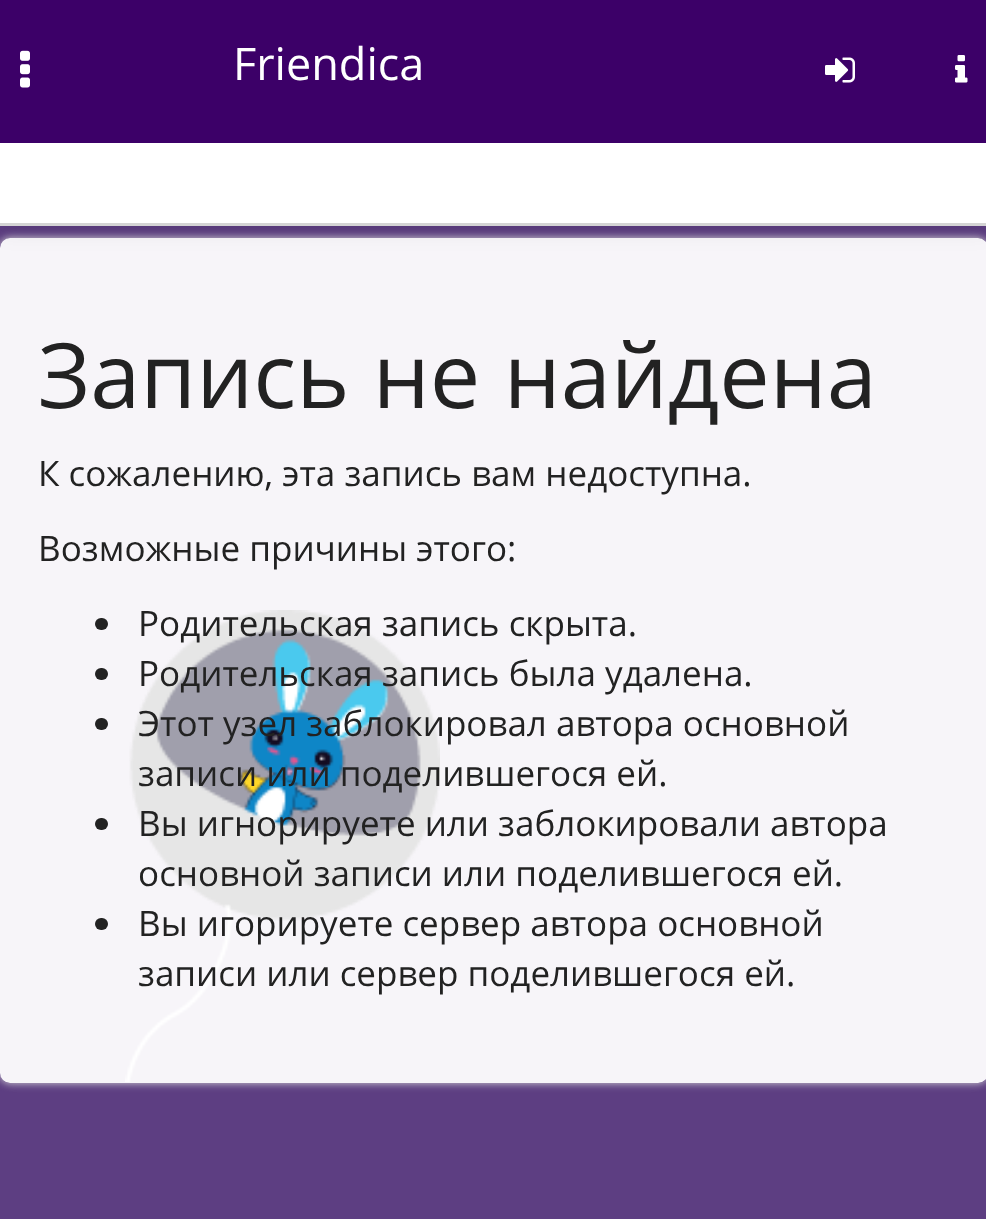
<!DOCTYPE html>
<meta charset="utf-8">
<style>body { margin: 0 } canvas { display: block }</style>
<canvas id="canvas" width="986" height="1219"></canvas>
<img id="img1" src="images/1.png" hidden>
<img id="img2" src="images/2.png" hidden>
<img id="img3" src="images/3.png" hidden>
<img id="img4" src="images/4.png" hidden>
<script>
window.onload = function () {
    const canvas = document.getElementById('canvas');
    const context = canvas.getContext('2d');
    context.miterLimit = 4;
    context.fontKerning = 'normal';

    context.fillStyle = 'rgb(93, 62, 130)';
    context.fillRect(0, 0, 986, 1219);
    context.save();
    context.beginPath();
    context.moveTo(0, 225);
    context.lineTo(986, 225);
    context.lineTo(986, 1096);
    context.lineTo(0, 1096);
    context.closePath();
    context.moveTo(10, 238);
    context.lineTo(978, 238);
    context.bezierCurveTo(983.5, 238, 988, 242.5, 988, 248);
    context.lineTo(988, 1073);
    context.bezierCurveTo(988, 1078.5, 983.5, 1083, 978, 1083);
    context.lineTo(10, 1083);
    context.bezierCurveTo(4.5, 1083, 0, 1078.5, 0, 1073);
    context.lineTo(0, 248);
    context.bezierCurveTo(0, 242.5, 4.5, 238, 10, 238);
    context.closePath();
    context.clip('evenodd');
    context.fillStyle = 'rgb(218, 218, 218)';
    context.filter = 'blur(4px)';
    context.beginPath();
    context.roundRect(0, 238, 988, 845, 10);
    context.fill();
    context.filter = 'none';
    context.restore();
    context.fillStyle = 'rgba(255, 255, 255, 0.95)';
    context.beginPath();
    context.roundRect(0, 238, 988, 845, 10);
    context.fill();
    context.fillStyle = 'rgba(0, 0, 0, 0.1)';
    context.filter = 'blur(12.5px)';
    context.beginPath();
    context.rect(0, 128, 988, 100);
    context.fill();
    context.filter = 'none';
    context.fillStyle = 'rgb(60, 0, 104)';
    context.fillRect(0, 0, 986, 143);
    context.drawImage(document.getElementById('img1'), 20, 50, 10, 38);
    context.drawImage(document.getElementById('img2'), 825, 57, 30, 26);
    context.drawImage(document.getElementById('img3'), 955, 55, 13, 28);
    context.fillStyle = 'rgb(255, 255, 255)';
    context.fillRect(0, 143, 986, 80);
    context.fillStyle = 'rgb(212, 212, 212)';
    context.fillRect(0, 223, 986, 3);
    context.drawImage(document.getElementById('img4'), 125, 610, 315, 472);
    context.fillStyle = 'rgb(34, 34, 34)';
    context.beginPath();
    context.roundRect(95, 618, 13, 12, 6);
    context.fill();
    context.beginPath();
    context.roundRect(95, 668, 13, 12, 6);
    context.fill();
    context.beginPath();
    context.roundRect(95, 718, 13, 12, 6);
    context.fill();
    context.beginPath();
    context.roundRect(95, 818, 13, 12, 6);
    context.fill();
    context.beginPath();
    context.roundRect(95, 918, 13, 12, 6);
    context.fill();
    context.font = '45px Open Sans';
    context.fillStyle = 'rgb(255, 255, 255)';
    context.fillText('Friendica', 233, 80);
    context.font = '90px Open Sans';
    context.fillStyle = 'rgb(34, 34, 34)';
    context.fillText('Запись не найдена', 38, 408);
    context.font = '35px Open Sans';
    context.fillText('К сожалению, эта запись вам недоступна.', 38, 486);
    context.fillText('Возможные причины этого:', 38, 561);
    context.fillText('Родительская запись скрыта.', 138, 636);
    context.fillText('Родительская запись была удалена.', 138, 686);
    context.fillText('Этот узел заблокировал автора основной', 138, 736);
    context.fillText('записи или поделившегося ей.', 138, 786);
    context.fillText('Вы игнорируете или заблокировали автора', 138, 836);
    context.fillText('основной записи или поделившегося ей.', 138, 886);
    context.fillText('Вы игорируете сервер автора основной', 138, 936);
    context.fillText('записи или сервер поделившегося ей.', 138, 986);
};
</script>
